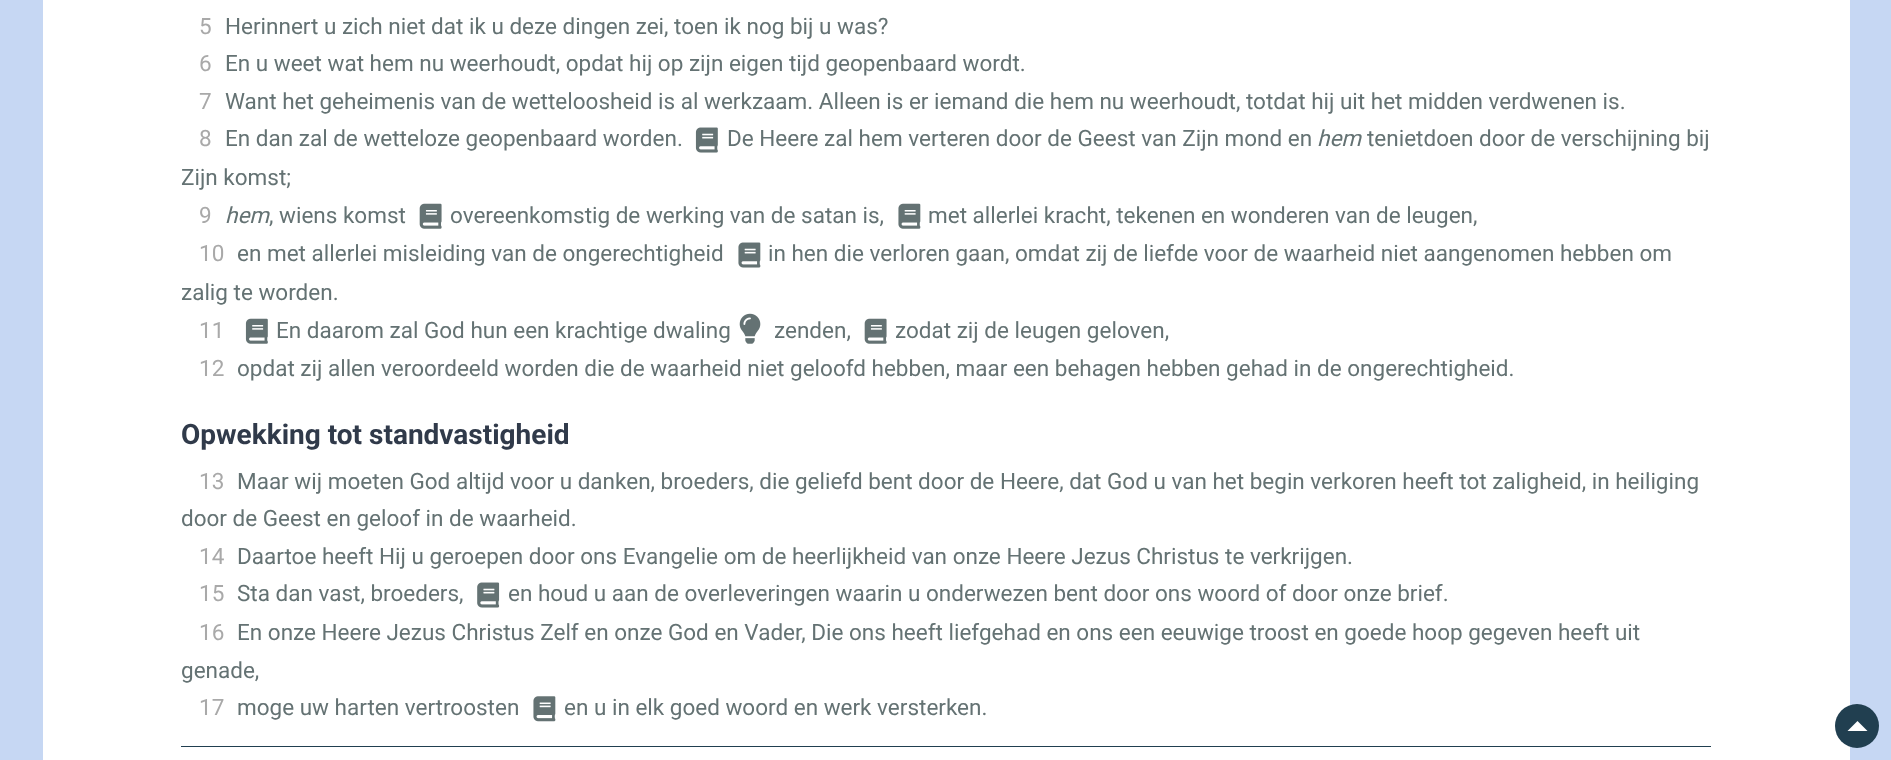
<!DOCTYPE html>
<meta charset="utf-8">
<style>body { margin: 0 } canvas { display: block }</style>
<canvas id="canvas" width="1891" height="760"></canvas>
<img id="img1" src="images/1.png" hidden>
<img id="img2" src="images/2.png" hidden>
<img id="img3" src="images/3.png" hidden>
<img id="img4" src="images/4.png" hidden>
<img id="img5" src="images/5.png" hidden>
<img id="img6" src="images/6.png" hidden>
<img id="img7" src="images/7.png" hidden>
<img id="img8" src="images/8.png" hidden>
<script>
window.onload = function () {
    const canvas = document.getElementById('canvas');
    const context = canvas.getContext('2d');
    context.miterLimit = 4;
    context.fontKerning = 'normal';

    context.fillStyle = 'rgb(198, 215, 243)';
    context.fillRect(0, 0, 1891, 760);
    context.fillStyle = 'rgb(255, 255, 255)';
    context.fillRect(43, 0, 1807, 760);
    context.drawImage(document.getElementById('img1'), 695, 127, 23, 26);
    context.drawImage(document.getElementById('img2'), 419, 203, 23, 26);
    context.drawImage(document.getElementById('img3'), 898, 203, 23, 26);
    context.drawImage(document.getElementById('img4'), 738, 242, 23, 26);
    context.drawImage(document.getElementById('img5'), 245, 318, 23, 26);
    context.drawImage(document.getElementById('img6'), 739, 313, 22, 31);
    context.drawImage(document.getElementById('img2'), 864, 318, 23, 26);
    context.drawImage(document.getElementById('img7'), 477, 582, 23, 26);
    context.drawImage(document.getElementById('img8'), 533, 696, 23, 26);
    context.fillStyle = 'rgb(33, 63, 80)';
    context.fillRect(181, 746, 1530, 1);
    context.beginPath();
    context.arc(1857, 726, 22, 0, 2 * Math.PI);
    context.fill();
    context.fillStyle = 'rgb(255, 255, 255)';
    context.beginPath();
    context.moveTo(1867.5, 731);
    context.lineTo(1847.5, 731);
    context.lineTo(1857.5, 721);
    context.closePath();
    context.fill();
    context.font = '22.5px Roboto';
    context.fillStyle = 'rgb(169, 169, 169)';
    context.fillText('5', 199, 34);
    context.fillStyle = 'rgb(100, 114, 115)';
    context.fillText('Herinnert u zich niet dat ik u deze dingen zei, toen ik nog bij u was?', 225, 34);
    context.fillStyle = 'rgb(169, 169, 169)';
    context.fillText('6', 199, 71);
    context.fillStyle = 'rgb(100, 114, 115)';
    context.fillText('En u weet wat hem nu weerhoudt, opdat hij op zijn eigen tijd geopenbaard wordt.', 225, 71);
    context.fillStyle = 'rgb(169, 169, 169)';
    context.fillText('7', 199, 109);
    context.fillStyle = 'rgb(100, 114, 115)';
    context.fillText('Want het geheimenis van de wetteloosheid is al werkzaam. Alleen is er iemand die hem nu weerhoudt, totdat hij uit het midden verdwenen is.', 225, 109);
    context.fillStyle = 'rgb(169, 169, 169)';
    context.fillText('8', 199, 146);
    context.fillStyle = 'rgb(100, 114, 115)';
    context.fillText('En dan zal de wetteloze geopenbaard worden.', 225, 146);
    context.fillText('De Heere zal hem verteren door de Geest van Zijn mond en', 727, 146);
    context.font = 'italic 22.5px Roboto';
    context.fillText('hem', 1317, 146);
    context.font = '22.5px Roboto';
    context.fillText('tenietdoen door de verschijning bij', 1367, 146);
    context.fillText('Zijn komst;', 181, 185);
    context.fillStyle = 'rgb(169, 169, 169)';
    context.fillText('9', 199, 223);
    context.font = 'italic 22.5px Roboto';
    context.fillStyle = 'rgb(100, 114, 115)';
    context.fillText('hem', 225, 223);
    context.font = '22.5px Roboto';
    context.fillText(', wiens komst', 269, 223);
    context.fillText('overeenkomstig de werking van de satan is,', 450, 223);
    context.fillText('met allerlei kracht, tekenen en wonderen van de leugen,', 928, 223);
    context.fillStyle = 'rgb(169, 169, 169)';
    context.fillText('10', 199, 261);
    context.fillStyle = 'rgb(100, 114, 115)';
    context.fillText('en met allerlei misleiding van de ongerechtigheid', 237, 261);
    context.fillText('in hen die verloren gaan, omdat zij de liefde voor de waarheid niet aangenomen hebben om', 768, 261);
    context.fillText('zalig te worden.', 181, 300);
    context.fillStyle = 'rgb(169, 169, 169)';
    context.fillText('11', 199, 338);
    context.fillStyle = 'rgb(100, 114, 115)';
    context.fillText('En daarom zal God hun een krachtige dwaling', 276, 338);
    context.fillText('zenden,', 774, 338);
    context.fillText('zodat zij de leugen geloven,', 895, 338);
    context.fillStyle = 'rgb(169, 169, 169)';
    context.fillText('12', 199, 376);
    context.fillStyle = 'rgb(100, 114, 115)';
    context.fillText('opdat zij allen veroordeeld worden die de waarheid niet geloofd hebben, maar een behagen hebben gehad in de ongerechtigheid.', 237, 376);
    context.font = 'bold 28px Roboto';
    context.fillStyle = 'rgb(48, 58, 74)';
    context.fillText('Opwekking tot standvastigheid', 181, 444);
    context.font = '22.5px Roboto';
    context.fillStyle = 'rgb(169, 169, 169)';
    context.fillText('13', 199, 489);
    context.fillStyle = 'rgb(100, 114, 115)';
    context.fillText('Maar wij moeten God altijd voor u danken, broeders, die geliefd bent door de Heere, dat God u van het begin verkoren heeft tot zaligheid, in heiliging', 237, 489);
    context.fillText('door de Geest en geloof in de waarheid.', 181, 526);
    context.fillStyle = 'rgb(169, 169, 169)';
    context.fillText('14', 199, 564);
    context.fillStyle = 'rgb(100, 114, 115)';
    context.fillText('Daartoe heeft Hij u geroepen door ons Evangelie om de heerlijkheid van onze Heere Jezus Christus te verkrijgen.', 237, 564);
    context.fillStyle = 'rgb(169, 169, 169)';
    context.fillText('15', 199, 601);
    context.fillStyle = 'rgb(100, 114, 115)';
    context.fillText('Sta dan vast, broeders,', 237, 601);
    context.fillText('en houd u aan de overleveringen waarin u onderwezen bent door ons woord of door onze brief.', 508, 601);
    context.fillStyle = 'rgb(169, 169, 169)';
    context.fillText('16', 199, 640);
    context.fillStyle = 'rgb(100, 114, 115)';
    context.fillText('En onze Heere Jezus Christus Zelf en onze God en Vader, Die ons heeft liefgehad en ons een eeuwige troost en goede hoop gegeven heeft uit', 237, 640);
    context.fillText('genade,', 181, 678);
    context.fillStyle = 'rgb(169, 169, 169)';
    context.fillText('17', 199, 715);
    context.fillStyle = 'rgb(100, 114, 115)';
    context.fillText('moge uw harten vertroosten', 237, 715);
    context.fillText('en u in elk goed woord en werk versterken.', 564, 715);
};
</script>
